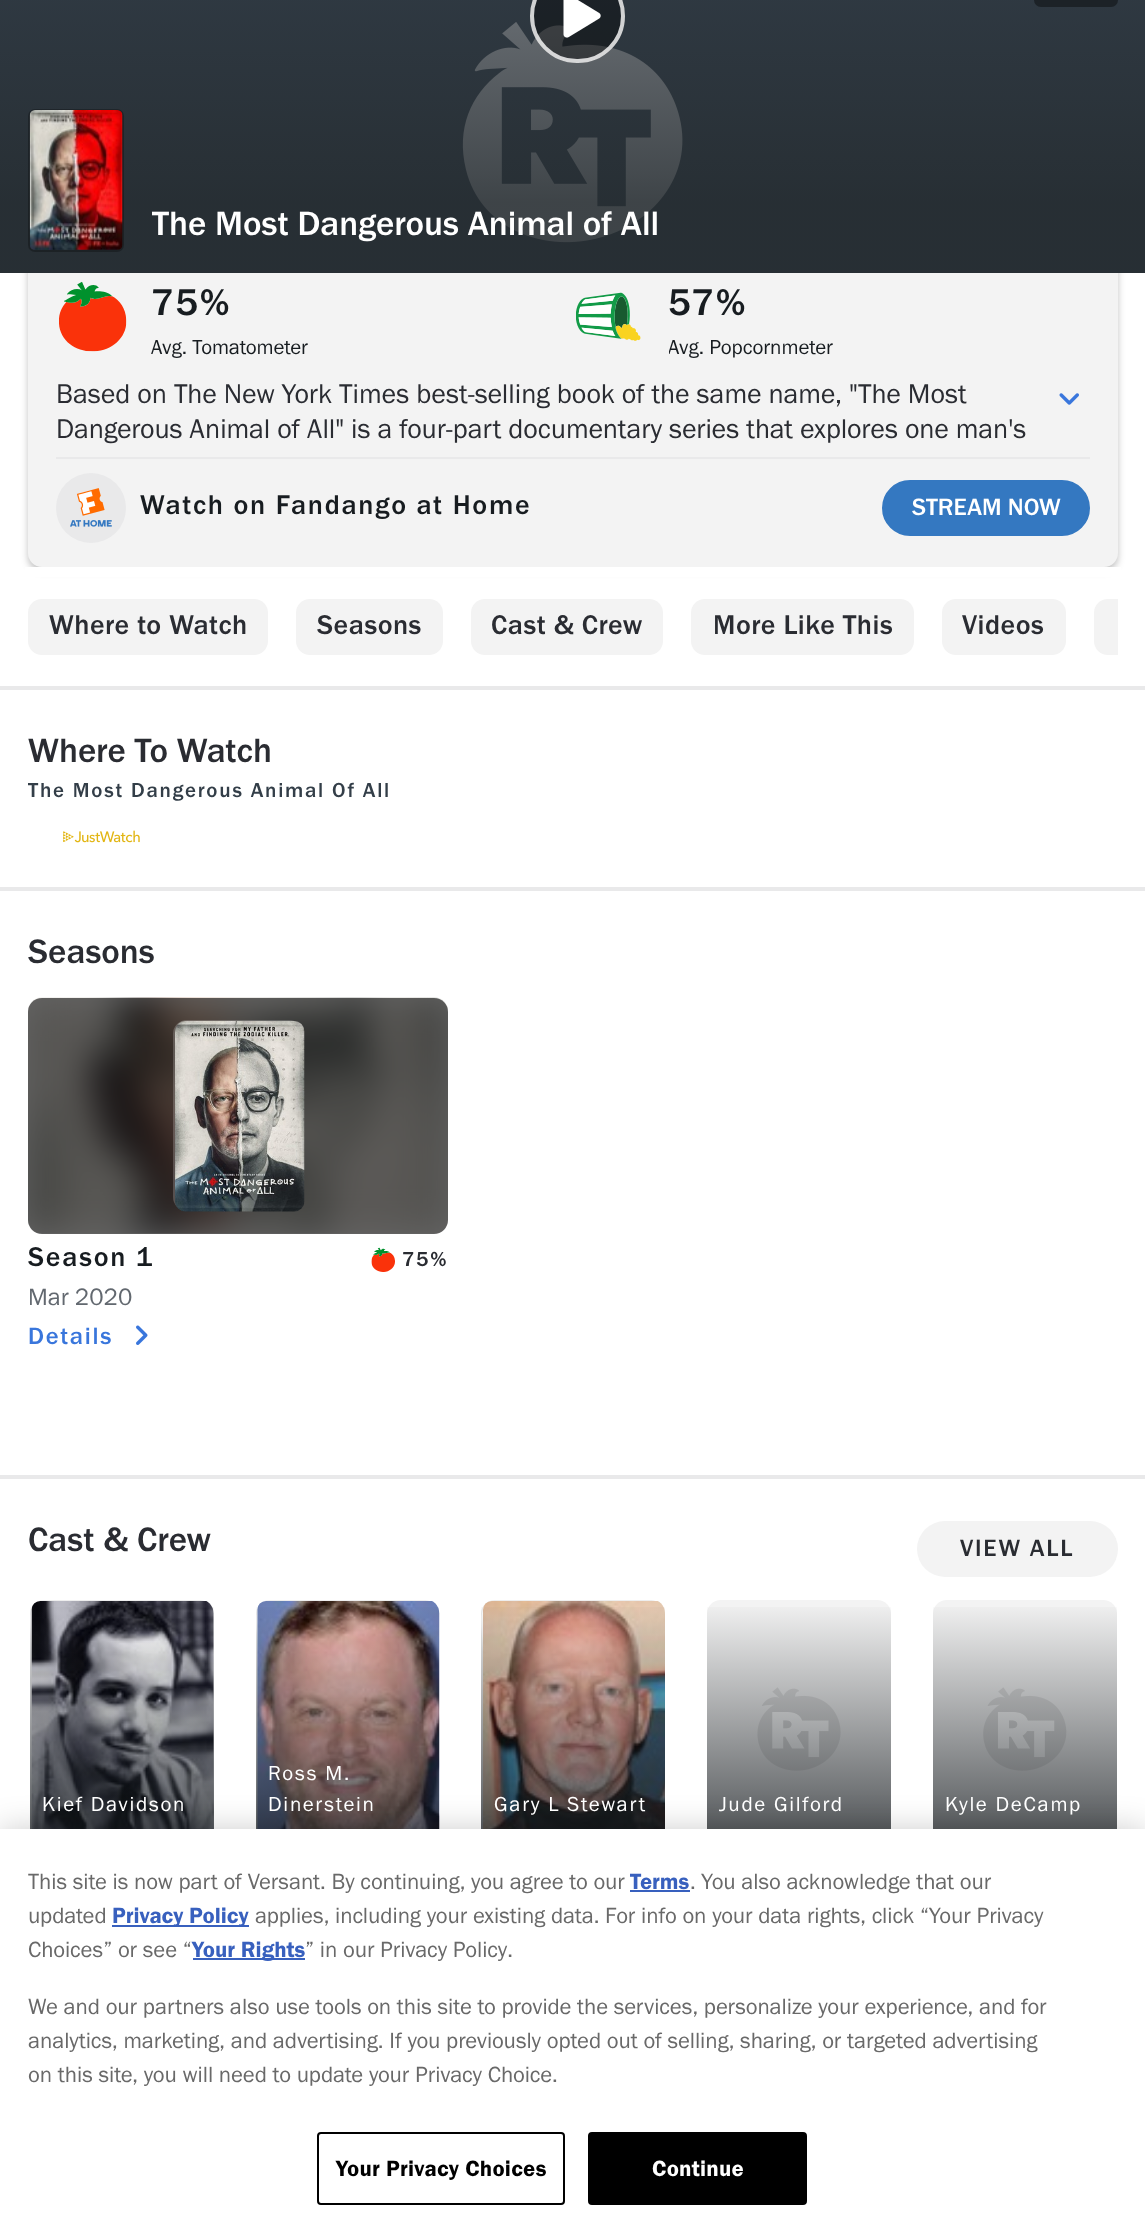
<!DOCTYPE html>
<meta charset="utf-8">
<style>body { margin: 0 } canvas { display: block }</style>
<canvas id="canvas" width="1145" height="2232"></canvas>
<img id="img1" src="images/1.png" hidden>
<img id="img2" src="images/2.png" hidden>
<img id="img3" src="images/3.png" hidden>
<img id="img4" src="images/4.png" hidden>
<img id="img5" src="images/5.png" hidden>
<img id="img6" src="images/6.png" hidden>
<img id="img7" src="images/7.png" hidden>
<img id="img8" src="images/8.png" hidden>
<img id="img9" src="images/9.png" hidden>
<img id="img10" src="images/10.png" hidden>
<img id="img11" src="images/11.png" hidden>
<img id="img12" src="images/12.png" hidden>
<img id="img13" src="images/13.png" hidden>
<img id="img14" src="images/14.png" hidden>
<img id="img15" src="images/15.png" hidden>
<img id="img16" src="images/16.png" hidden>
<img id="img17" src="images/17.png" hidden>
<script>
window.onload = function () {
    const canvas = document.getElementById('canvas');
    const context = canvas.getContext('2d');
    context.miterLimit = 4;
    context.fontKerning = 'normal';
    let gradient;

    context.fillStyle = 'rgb(255, 255, 255)';
    context.fillRect(0, 0, 1145, 2232);
    context.fillStyle = 'rgba(0, 0, 0, 0.24)';
    context.filter = 'blur(3.5px)';
    context.beginPath();
    context.roundRect(28, 256, 1090, 315, 14);
    context.fill();
    context.filter = 'none';
    context.fillStyle = 'rgb(243, 243, 243)';
    context.beginPath();
    context.roundRect(28, 252, 1090, 315, 14);
    context.fill();
    context.fillStyle = 'rgb(51, 62, 73)';
    context.fillRect(0, 0, 1145, 273);
    context.drawImage(document.getElementById('img1'), 462, 22, 221, 221);
    gradient = context.createLinearGradient(573, 273, 573, 0);
    gradient.addColorStop(0.26, 'rgba(34, 40, 43, 0.7)');
    gradient.addColorStop(0.36, 'rgba(34, 40, 43, 0.63)');
    gradient.addColorStop(1, 'rgba(34, 40, 43, 0.26)');
    context.fillStyle = gradient;
    context.fillRect(0, 0, 1145, 273);
    context.fillStyle = 'rgba(0, 0, 0, 0.4)';
    context.beginPath();
    context.roundRect(530, -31, 95, 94, 47);
    context.fill();
    context.beginPath();
    context.roundRect(532, -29, 91, 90, 45);
    context.strokeStyle = 'rgba(255, 255, 255, 0.8)';
    context.lineWidth = 4;
    context.stroke();
    context.drawImage(document.getElementById('img2'), 563, 0, 38, 38);
    context.fillStyle = 'rgb(28, 34, 39)';
    context.beginPath();
    context.roundRect(1034, 0, 84, 7, [0, 0, 14, 14]);
    context.fill();
    context.beginPath();
    context.roundRect(29, 110, 94, 141, 6);
    context.strokeStyle = 'rgba(0, 0, 0, 0.27)';
    context.lineWidth = 2;
    context.stroke();
    context.drawImage(document.getElementById('img3'), 29, 110, 94, 140);
    context.drawImage(document.getElementById('img4'), 59, 281, 68, 71);
    context.drawImage(document.getElementById('img5'), 576, 292, 65, 49);
    context.drawImage(document.getElementById('img6'), 1059, 393, 20, 12);
    context.fillStyle = 'rgb(233, 233, 234)';
    context.fillRect(56, 457, 1034, 2);
    context.beginPath();
    context.arc(91, 508, 35, 0, 2 * Math.PI);
    context.fill();
    context.drawImage(document.getElementById('img7'), 70, 488, 42, 39);
    context.fillStyle = 'rgb(52, 120, 193)';
    context.beginPath();
    context.roundRect(883, 481, 206, 54, 27);
    context.fill();
    context.strokeStyle = 'rgb(52, 120, 193)';
    context.stroke();
    context.fillStyle = 'rgb(255, 255, 255)';
    context.fillRect(25, 567, 1096, 10);
    context.fillStyle = 'rgb(233, 233, 234)';
    context.fillRect(0, 686, 1145, 4);
    context.fillStyle = 'rgb(243, 243, 243)';
    context.beginPath();
    context.roundRect(28, 599, 240, 56, 14);
    context.fill();
    context.beginPath();
    context.roundRect(296, 599, 147, 56, 14);
    context.fill();
    context.beginPath();
    context.roundRect(471, 599, 192, 56, 14);
    context.fill();
    context.beginPath();
    context.roundRect(691, 599, 223, 56, 14);
    context.fill();
    context.beginPath();
    context.roundRect(942, 599, 124, 56, 14);
    context.fill();
    context.beginPath();
    context.roundRect(1094, 599, 24, 56, [14, 0, 0, 14]);
    context.fill();
    context.fillStyle = 'rgb(233, 233, 234)';
    context.fillRect(0, 887, 1145, 4);
    context.drawImage(document.getElementById('img8'), 63, 830, 77, 13);
    context.fillRect(0, 1475, 1145, 4);
    context.drawImage(document.getElementById('img9'), 28, 997, 420, 237);
    context.fillStyle = 'rgba(0, 0, 0, 0.6)';
    context.beginPath();
    context.roundRect(28, 998, 420, 236, 14);
    context.fill();
    context.beginPath();
    context.roundRect(174, 1021, 128, 189, 13);
    context.strokeStyle = 'rgba(255, 255, 255, 0.2)';
    context.stroke();
    context.drawImage(document.getElementById('img10'), 175, 1021, 130, 191);
    context.drawImage(document.getElementById('img11'), 371, 1247, 24, 25);
    context.drawImage(document.getElementById('img12'), 136, 1325, 12, 20);
    context.fillStyle = 'rgb(243, 243, 243)';
    context.beginPath();
    context.roundRect(917, 1521, 201, 56, 28);
    context.fill();
    context.fillStyle = 'rgb(238, 238, 238)';
    context.beginPath();
    context.moveTo(41, 1602);
    context.lineTo(207, 1602);
    context.bezierCurveTo(205, 1601, 203, 1600, 200, 1600);
    context.lineTo(44, 1600);
    context.bezierCurveTo(36, 1600, 30, 1606, 30, 1614);
    context.lineTo(30, 1848);
    context.bezierCurveTo(30, 1851, 31, 1853, 32, 1855);
    context.lineTo(32, 1652);
    context.bezierCurveTo(32, 1634, 25, 1602, 41, 1602);
    context.closePath();
    context.fill();
    context.drawImage(document.getElementById('img13'), 31, 1601, 183, 228);
    gradient = context.createLinearGradient(122, 1600, 122, 1862);
    gradient.addColorStop(0, 'rgba(23, 28, 32, 0)');
    gradient.addColorStop(1, 'rgba(23, 28, 32, 0.8)');
    context.fillStyle = gradient;
    context.fillRect(30, 1607, 184, 222);
    context.fillStyle = 'rgb(238, 238, 238)';
    context.beginPath();
    context.moveTo(267, 1602);
    context.lineTo(432, 1602);
    context.bezierCurveTo(430, 1601, 428, 1600, 425, 1600);
    context.lineTo(270, 1600);
    context.bezierCurveTo(262, 1600, 256, 1606, 256, 1614);
    context.lineTo(256, 1848);
    context.bezierCurveTo(256, 1851, 257, 1853, 258, 1855);
    context.lineTo(258, 1652);
    context.bezierCurveTo(258, 1634, 251, 1602, 267, 1602);
    context.closePath();
    context.fill();
    context.drawImage(document.getElementById('img14'), 257, 1601, 183, 228);
    gradient = context.createLinearGradient(347, 1600, 347, 1862);
    gradient.addColorStop(0, 'rgba(23, 28, 32, 0)');
    gradient.addColorStop(1, 'rgba(23, 28, 32, 0.8)');
    context.fillStyle = gradient;
    context.fillRect(256, 1607, 183, 222);
    context.fillStyle = 'rgb(238, 238, 238)';
    context.beginPath();
    context.moveTo(492, 1602);
    context.lineTo(658, 1602);
    context.bezierCurveTo(656, 1601, 654, 1600, 651, 1600);
    context.lineTo(495, 1600);
    context.bezierCurveTo(487, 1600, 481, 1606, 481, 1614);
    context.lineTo(481, 1848);
    context.bezierCurveTo(481, 1851, 482, 1853, 483, 1855);
    context.lineTo(483, 1652);
    context.bezierCurveTo(483, 1634, 476, 1602, 492, 1602);
    context.closePath();
    context.fill();
    context.drawImage(document.getElementById('img15'), 483, 1601, 182, 228);
    gradient = context.createLinearGradient(573, 1600, 573, 1862);
    gradient.addColorStop(0, 'rgba(23, 28, 32, 0)');
    gradient.addColorStop(1, 'rgba(23, 28, 32, 0.8)');
    context.fillStyle = gradient;
    context.fillRect(481, 1607, 184, 222);
    context.fillStyle = 'rgb(243, 243, 243)';
    context.beginPath();
    context.roundRect(707, 1600, 184, 262, 14);
    context.fill();
    context.drawImage(document.getElementById('img16'), 757, 1687, 84, 84);
    gradient = context.createLinearGradient(799, 1600, 799, 1862);
    gradient.addColorStop(0, 'rgba(23, 28, 32, 0)');
    gradient.addColorStop(1, 'rgba(23, 28, 32, 0.8)');
    context.fillStyle = gradient;
    context.fillRect(707, 1607, 184, 222);
    context.fillStyle = 'rgb(243, 243, 243)';
    context.beginPath();
    context.roundRect(933, 1600, 184, 262, 14);
    context.fill();
    context.drawImage(document.getElementById('img17'), 983, 1687, 84, 84);
    gradient = context.createLinearGradient(1025, 1600, 1025, 1862);
    gradient.addColorStop(0, 'rgba(23, 28, 32, 0)');
    gradient.addColorStop(1, 'rgba(23, 28, 32, 0.8)');
    context.fillStyle = gradient;
    context.fillRect(933, 1607, 184, 222);
    context.fillStyle = 'rgba(0, 0, 0, 0.2)';
    context.filter = 'blur(16px)';
    context.beginPath();
    context.rect(0, 1829, 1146, 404);
    context.fill();
    context.filter = 'none';
    context.fillStyle = 'rgb(255, 255, 255)';
    context.fillRect(0, 1829, 1145, 403);
    context.fillStyle = 'rgb(56, 96, 190)';
    context.fillRect(630, 1890, 60, 2);
    context.fillRect(112, 1925, 137, 2);
    context.fillRect(193, 1958, 112, 2);
    context.beginPath();
    context.roundRect(318, 2133, 246, 71, 3);
    context.strokeStyle = 'rgb(0, 0, 0)';
    context.stroke();
    context.fillStyle = 'rgb(0, 0, 0)';
    context.beginPath();
    context.roundRect(589, 2133, 217, 71, 3);
    context.fill();
    context.stroke();
    context.font = '500 35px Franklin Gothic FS';
    context.fillStyle = 'rgb(255, 255, 255)';
    context.fillText('The Most Dangerous Animal of All', 152, 235);
    context.letterSpacing = '1.75px';
    context.font = '500 38.5px Franklin Gothic FS';
    context.fillStyle = 'rgb(23, 28, 32)';
    context.fillText('75%', 151, 315);
    context.letterSpacing = '0px';
    context.font = '21px Franklin Gothic FS';
    context.fillText('Avg. Tomatometer', 151, 354);
    context.letterSpacing = '1.75px';
    context.font = '500 38.5px Franklin Gothic FS';
    context.fillText('57%', 668, 315);
    context.save();
    context.beginPath();
    context.rect(669, 280, 164, 84);
    context.clip();
    context.letterSpacing = '0px';
    context.font = '21px Franklin Gothic FS';
    context.fillText('Avg. Popcornmeter', 668, 354);
    context.restore();
    context.letterSpacing = '0px';
    context.font = '28px Franklin Gothic FS';
    context.fillStyle = 'rgb(42, 44, 50)';
    context.fillText('Based on The New York Times best-selling book of the same name, "The Most', 56, 403);
    context.fillText('Dangerous Animal of All" is a four-part documentary series that explores one man\'s', 56, 438);
    context.letterSpacing = '1.75px';
    context.font = '500 28px Franklin Gothic FS';
    context.fillStyle = 'rgb(23, 28, 32)';
    context.fillText('Watch on Fandango at Home', 140, 514);
    context.letterSpacing = '0px';
    context.font = '500 24.5px Franklin Gothic FS';
    context.fillStyle = 'rgb(255, 255, 255)';
    context.fillText('STREAM NOW', 912, 515);
    context.letterSpacing = '0.5px';
    context.font = '500 28px Franklin Gothic FS';
    context.fillStyle = 'rgb(42, 44, 50)';
    context.fillText('Where to Watch', 49, 634);
    context.fillText('Seasons', 317, 634);
    context.fillText('Cast & Crew', 491, 634);
    context.fillText('More Like This', 713, 634);
    context.fillText('Videos', 962, 634);
    context.letterSpacing = '0px';
    context.font = '500 35px Franklin Gothic FS';
    context.fillText('Where To Watch', 28, 762);
    context.letterSpacing = '1.75px';
    context.font = '500 21px Franklin Gothic FS';
    context.fillStyle = 'rgb(51, 62, 72)';
    context.fillText('The Most Dangerous Animal Of All', 28, 797);
    context.letterSpacing = '0px';
    context.font = '500 35px Franklin Gothic FS';
    context.fillStyle = 'rgb(42, 44, 50)';
    context.fillText('Seasons', 28, 963);
    context.letterSpacing = '1.75px';
    context.font = '500 28px Franklin Gothic FS';
    context.fillStyle = 'rgb(23, 28, 32)';
    context.fillText('Season 1', 28, 1266);
    context.font = '500 21px Franklin Gothic FS';
    context.fillStyle = 'rgb(42, 44, 50)';
    context.fillText('75%', 402, 1266);
    context.letterSpacing = '0px';
    context.font = '24.5px Franklin Gothic FS';
    context.fillStyle = 'rgb(98, 104, 111)';
    context.fillText('Mar 2020', 28, 1305);
    context.letterSpacing = '1.75px';
    context.font = '500 24.5px Franklin Gothic FS';
    context.fillStyle = 'rgb(57, 118, 220)';
    context.fillText('Details', 28, 1344);
    context.letterSpacing = '0px';
    context.font = '500 35px Franklin Gothic FS';
    context.fillStyle = 'rgb(42, 44, 50)';
    context.fillText('Cast & Crew', 28, 1551);
    context.letterSpacing = '1.75px';
    context.font = '500 24.5px Franklin Gothic FS';
    context.fillText('VIEW ALL', 960, 1556);
    context.font = '21px Franklin Gothic FS';
    context.fillStyle = 'rgb(255, 255, 255)';
    context.fillText('Kief Davidson', 42, 1811);
    context.fillText('Ross M.', 268, 1780);
    context.fillText('Dinerstein', 268, 1811);
    context.fillText('Gary L Stewart', 494, 1811);
    context.fillText('Jude Gilford', 719, 1811);
    context.fillText('Kyle DeCamp', 945, 1811);
    context.letterSpacing = '0px';
    context.font = '22.75px Franklin Gothic FS';
    context.fillStyle = 'rgb(105, 105, 105)';
    context.fillText('This site is now part of Versant. By continuing, you agree to our', 28, 1889);
    context.font = '600 22.75px Franklin Gothic FS';
    context.fillStyle = 'rgb(56, 96, 190)';
    context.fillText('Terms', 630, 1889);
    context.font = '22.75px Franklin Gothic FS';
    context.fillStyle = 'rgb(105, 105, 105)';
    context.fillText('. You also acknowledge that our', 690, 1889);
    context.fillText('updated', 28, 1923);
    context.font = '600 22.75px Franklin Gothic FS';
    context.fillStyle = 'rgb(56, 96, 190)';
    context.fillText('Privacy Policy', 112, 1923);
    context.font = '22.75px Franklin Gothic FS';
    context.fillStyle = 'rgb(105, 105, 105)';
    context.fillText('applies, including your existing data. For info on your data rights, click “Your Privacy', 255, 1923);
    context.fillText('Choices” or see “', 28, 1957);
    context.font = '600 22.75px Franklin Gothic FS';
    context.fillStyle = 'rgb(56, 96, 190)';
    context.fillText('Your Rights', 192, 1957);
    context.font = '22.75px Franklin Gothic FS';
    context.fillStyle = 'rgb(105, 105, 105)';
    context.fillText('” in our Privacy Policy.', 305, 1957);
    context.fillText('We and our partners also use tools on this site to provide the services, personalize your experience, and for', 28, 2014);
    context.fillText('analytics, marketing, and advertising. If you previously opted out of selling, sharing, or targeted advertising', 28, 2048);
    context.fillText('on this site, you will need to update your Privacy Choice.', 28, 2082);
    context.letterSpacing = '0.25px';
    context.font = '600 22.75px Franklin Gothic FS';
    context.fillStyle = 'rgb(0, 0, 0)';
    context.fillText('Your Privacy Choices', 336, 2176);
    context.fillStyle = 'rgb(255, 255, 255)';
    context.fillText('Continue', 652, 2176);
};
</script>
